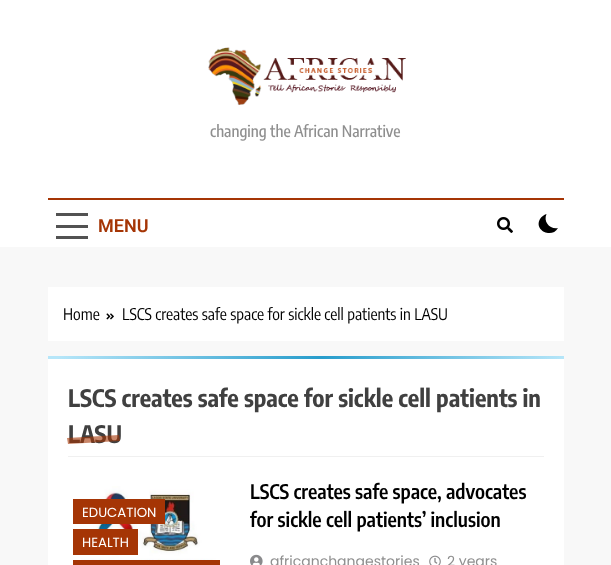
<!DOCTYPE html>
<meta charset="utf-8">
<style>body { margin: 0 } canvas { display: block }</style>
<canvas id="canvas" width="611" height="565"></canvas>
<img id="img1" src="images/1.png" hidden>
<img id="img2" src="images/2.png" hidden>
<img id="img3" src="images/3.png" hidden>
<img id="img4" src="images/4.png" hidden>
<img id="img5" src="images/5.png" hidden>
<img id="img6" src="images/6.png" hidden>
<script>
window.onload = function () {
    const canvas = document.getElementById('canvas');
    const context = canvas.getContext('2d');
    context.miterLimit = 4;
    context.fontKerning = 'normal';
    let gradient;

    context.fillStyle = 'rgb(248, 248, 248)';
    context.fillRect(0, 0, 611, 565);
    context.fillStyle = 'rgb(255, 255, 255)';
    context.fillRect(0, 0, 611, 247);
    context.drawImage(document.getElementById('img1'), 208, 47, 198, 59);
    context.fillStyle = 'rgb(165, 53, 5)';
    context.fillRect(48, 198, 516, 2);
    context.fillStyle = 'rgb(82, 82, 82)';
    context.fillRect(56, 213, 32, 3);
    context.fillRect(56, 225, 32, 3);
    context.fillRect(56, 236, 32, 3);
    context.drawImage(document.getElementById('img2'), 497, 217, 16, 16);
    context.fillStyle = 'rgb(0, 0, 0)';
    context.beginPath();
    context.moveTo(558, 228);
    context.bezierCurveTo(550, 229.5, 543, 222, 546.5, 214);
    context.bezierCurveTo(544, 215, 541.5, 216.5, 540, 219);
    context.bezierCurveTo(533.5, 230.5, 552, 239, 558, 228);
    context.closePath();
    context.fill();
    context.fillStyle = 'rgb(255, 255, 255)';
    context.fillRect(48, 287, 516, 54);
    context.drawImage(document.getElementById('img3'), 106, 313, 8, 7);
    context.fillRect(48, 359, 516, 206);
    gradient = context.createLinearGradient(176, 228, 436, 487);
    gradient.addColorStop(0.02, 'rgb(182, 230, 249)');
    gradient.addColorStop(0.53, 'rgb(40, 157, 204)');
    gradient.addColorStop(1, 'rgb(182, 230, 249)');
    context.fillStyle = gradient;
    context.fillRect(48, 356, 516, 3);
    context.fillStyle = 'rgb(240, 240, 240)';
    context.fillRect(68, 456, 476, 1);
    context.drawImage(document.getElementById('img4'), 81, 486, 135, 74);
    context.fillStyle = 'rgb(165, 53, 5)';
    context.fillRect(73, 499, 92, 25);
    context.fillRect(73, 529, 65, 26);
    context.fillRect(73, 560, 147, 5);
    context.drawImage(document.getElementById('img5'), 250, 554, 13, 11);
    context.drawImage(document.getElementById('img6'), 429, 555, 12, 10);
    context.font = '500 16px Encode Sans Condensed';
    context.fillStyle = 'rgb(143, 143, 143)';
    context.fillText('changing the African Narrative', 210, 137);
    context.font = '600 18px Roboto';
    context.fillStyle = 'rgb(165, 53, 5)';
    context.fillText('MENU', 98, 232);
    context.font = '16px Encode Sans Condensed';
    context.fillStyle = 'rgb(0, 0, 0)';
    context.fillText('Home', 63, 320);
    context.fillText('LSCS creates safe space for sickle cell patients in LASU', 122, 320);
    context.font = 'bold 24px Encode Sans Condensed';
    context.fillStyle = 'rgb(64, 64, 64)';
    context.fillText('LSCS creates safe space for sickle cell patients in', 68, 407);
    context.fillText('LASU', 68, 443);
    context.fillStyle = 'rgba(165, 53, 5, 0.6)';
    context.beginPath();
    context.moveTo(67, 438);
    context.lineTo(119, 435);
    context.lineTo(120, 441);
    context.lineTo(68, 444);
    context.closePath();
    context.fill();
    context.font = '13.25px Poppins';
    context.fillStyle = 'rgb(255, 255, 255)';
    context.fillText('EDUCATION', 82, 517);
    context.fillText('HEALTH', 82, 547);
    context.font = '600 20px Encode Sans Condensed';
    context.fillStyle = 'rgb(0, 0, 0)';
    context.fillText('LSCS creates safe space, advocates', 250, 499);
    context.fillText('for sickle cell patients’ inclusion', 250, 527);
    context.font = '14px Poppins';
    context.fillStyle = 'rgb(143, 143, 143)';
    context.fillText('africanchangestories', 270, 566);
    context.fillText('2 years', 447, 566);
};
</script>
